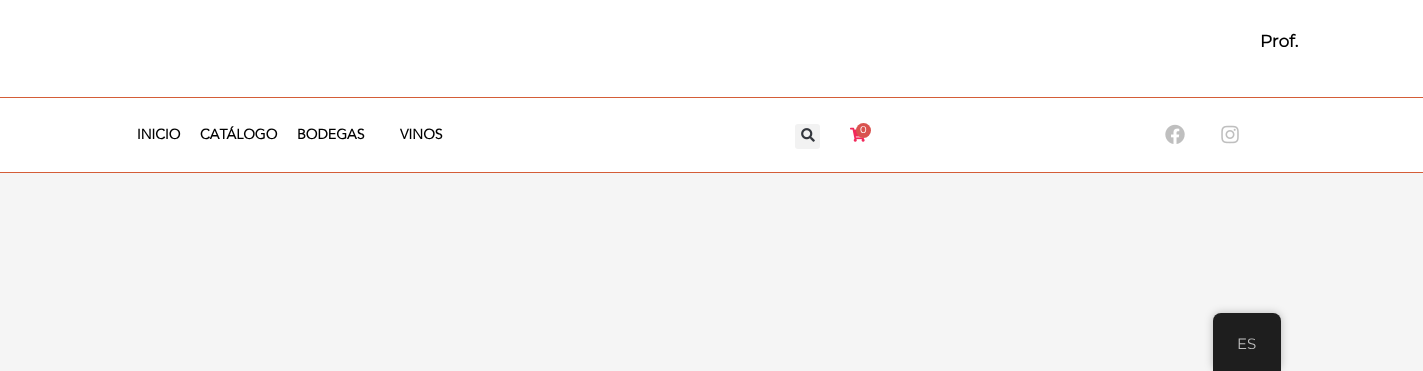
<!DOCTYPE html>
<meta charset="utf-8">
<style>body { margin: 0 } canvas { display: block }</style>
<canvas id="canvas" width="1423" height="371"></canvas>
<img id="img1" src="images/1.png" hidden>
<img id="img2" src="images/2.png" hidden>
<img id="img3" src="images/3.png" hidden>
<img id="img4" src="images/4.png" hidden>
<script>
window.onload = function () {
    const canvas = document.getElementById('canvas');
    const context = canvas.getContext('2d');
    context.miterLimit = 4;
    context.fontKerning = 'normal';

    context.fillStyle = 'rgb(245, 245, 245)';
    context.fillRect(0, 0, 1423, 371);
    context.fillStyle = 'rgb(255, 255, 255)';
    context.fillRect(0, 0, 1423, 172);
    context.fillStyle = 'rgb(212, 93, 55)';
    context.fillRect(0, 97, 1423, 1);
    context.fillRect(0, 172, 1423, 1);
    context.fillStyle = 'rgb(242, 242, 242)';
    context.beginPath();
    context.roundRect(795, 124, 25, 25, 3);
    context.fill();
    context.drawImage(document.getElementById('img1'), 801, 128, 14, 14);
    context.drawImage(document.getElementById('img2'), 850, 127, 15, 15);
    context.fillStyle = 'rgb(217, 83, 79)';
    context.beginPath();
    context.arc(863.5, 130.5, 7.5, 0, 2 * Math.PI);
    context.fill();
    context.drawImage(document.getElementById('img3'), 1165, 124, 20, 20);
    context.drawImage(document.getElementById('img4'), 1221, 125, 18, 19);
    context.fillStyle = 'rgba(0, 0, 0, 0.25)';
    context.filter = 'blur(4px)';
    context.beginPath();
    context.roundRect(1213, 313, 68, 58, 8);
    context.fill();
    context.filter = 'none';
    context.fillStyle = 'rgb(30, 30, 30)';
    context.beginPath();
    context.roundRect(1213, 313, 68, 58, [8, 8, 0, 0]);
    context.fill();
    context.font = 'bold 17px Montserrat';
    context.fillStyle = 'rgb(0, 0, 0)';
    context.fillText('Prof.', 1260, 47);
    context.font = 'bold 14px Avenir';
    context.fillText('INICIO', 137, 139);
    context.fillText('CATÁLOGO', 200, 139);
    context.fillText('BODEGAS', 297, 139);
    context.fillText('VINOS', 400, 139);
    context.font = '100 10px Montserrat';
    context.fillStyle = 'rgb(255, 255, 255)';
    context.fillText('0', 860, 133);
    context.font = '100 15px Montserrat';
    context.fillStyle = 'rgb(189, 189, 189)';
    context.fillText('ES', 1237, 349);
};
</script>
